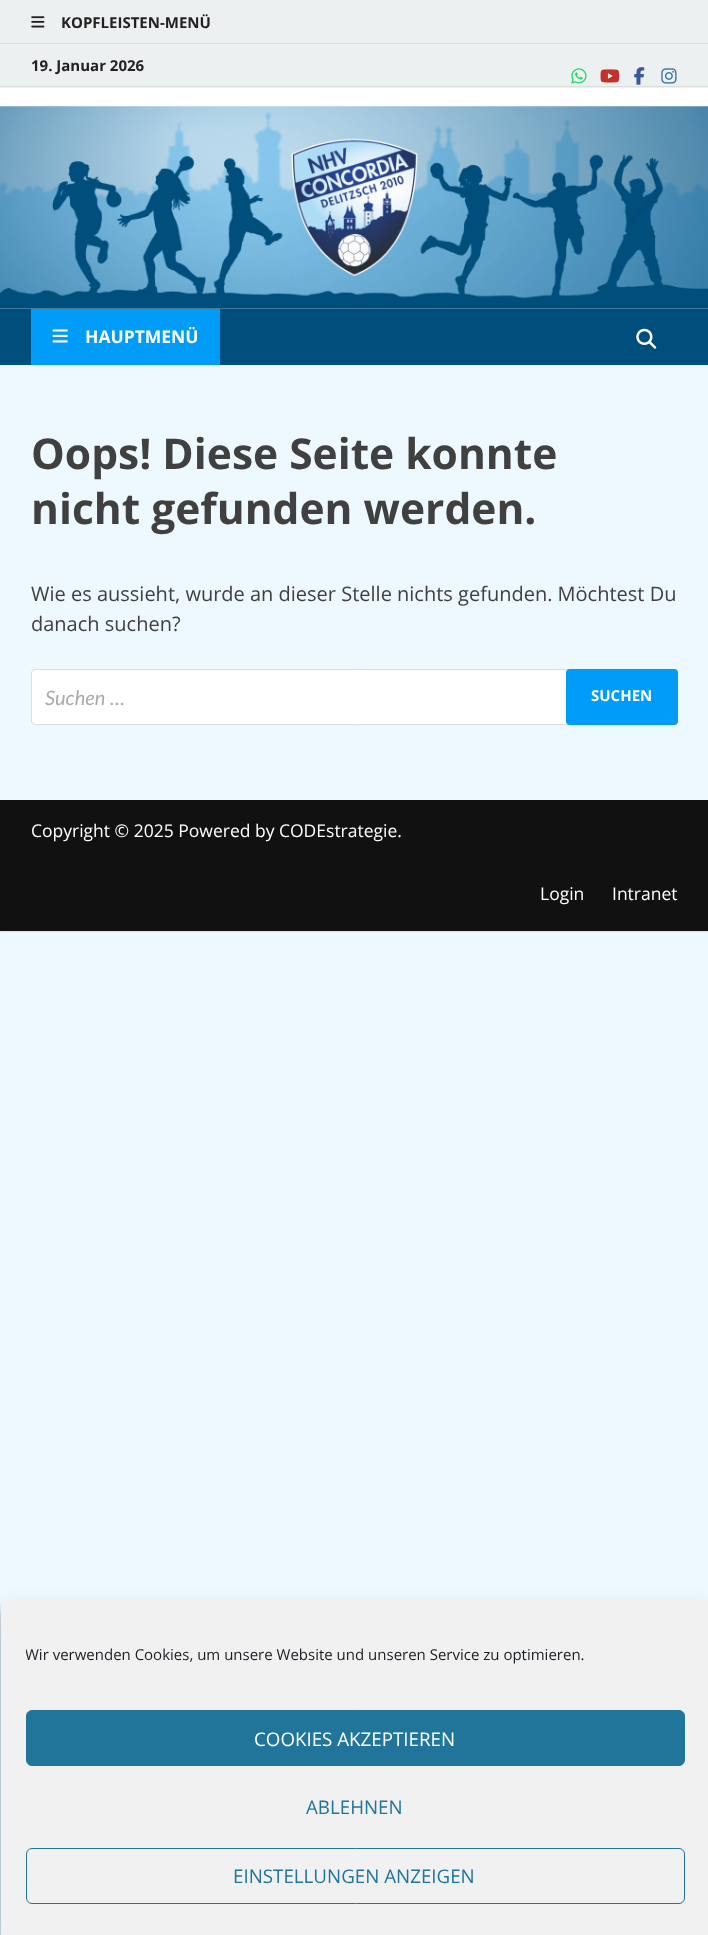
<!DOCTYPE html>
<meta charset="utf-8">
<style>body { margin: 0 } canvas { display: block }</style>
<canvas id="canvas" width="708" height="1935"></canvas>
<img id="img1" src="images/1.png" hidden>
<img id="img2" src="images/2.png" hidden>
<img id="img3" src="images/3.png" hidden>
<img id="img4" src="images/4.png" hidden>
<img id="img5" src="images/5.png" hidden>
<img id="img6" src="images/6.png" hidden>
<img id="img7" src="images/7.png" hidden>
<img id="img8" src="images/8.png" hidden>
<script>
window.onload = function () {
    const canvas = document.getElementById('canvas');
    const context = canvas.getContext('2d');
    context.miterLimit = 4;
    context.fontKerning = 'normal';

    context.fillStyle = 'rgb(237, 248, 255)';
    context.fillRect(0, 0, 708, 1935);
    context.save();
    context.beginPath();
    context.rect(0, 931, 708, 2);
    context.clip();
    context.fillStyle = 'rgb(187, 187, 187)';
    context.filter = 'blur(1px)';
    context.beginPath();
    context.rect(0, 0, 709, 931);
    context.fill();
    context.filter = 'none';
    context.restore();
    context.fillStyle = 'rgb(255, 255, 255)';
    context.fillRect(0, 88, 708, 221);
    context.fillStyle = 'rgb(236, 240, 241)';
    context.fillRect(0, 0, 708, 43);
    context.fillStyle = 'rgb(221, 221, 221)';
    context.fillRect(0, 43, 708, 1);
    context.drawImage(document.getElementById('img1'), 31, 16, 14, 12);
    context.fillStyle = 'rgb(236, 240, 241)';
    context.fillRect(0, 44, 708, 44);
    context.fillStyle = 'rgb(221, 221, 221)';
    context.fillRect(0, 86, 708, 1);
    context.drawImage(document.getElementById('img2'), 571, 68, 16, 16);
    context.drawImage(document.getElementById('img3'), 600, 69, 20, 14);
    context.drawImage(document.getElementById('img4'), 634, 67, 11, 18);
    context.drawImage(document.getElementById('img5'), 661, 68, 16, 16);
    context.drawImage(document.getElementById('img6'), 0, 106, 708, 203);
    context.fillStyle = 'rgb(0, 78, 124)';
    context.fillRect(0, 309, 708, 56);
    context.fillStyle = 'rgb(0, 156, 247)';
    context.fillRect(31, 309, 189, 56);
    context.drawImage(document.getElementById('img7'), 52, 329, 16, 14);
    context.drawImage(document.getElementById('img8'), 636, 328, 21, 21);
    context.fillStyle = 'rgb(255, 255, 255)';
    context.beginPath();
    context.roundRect(31.5, 669.5, 646, 55, 3.5);
    context.fill();
    context.strokeStyle = 'rgb(221, 221, 221)';
    context.stroke();
    context.fillStyle = 'rgb(0, 156, 247)';
    context.beginPath();
    context.roundRect(566, 669, 112, 56, 4);
    context.fill();
    context.fillStyle = 'rgb(17, 17, 17)';
    context.fillRect(0, 800, 708, 131);
    context.fillStyle = 'rgba(0, 0, 0, 0.23)';
    context.filter = 'blur(4px)';
    context.beginPath();
    context.rect(1, 1608, 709, 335);
    context.fill();
    context.filter = 'none';
    context.fillStyle = 'rgba(0, 0, 0, 0.19)';
    context.filter = 'blur(12.5px)';
    context.beginPath();
    context.rect(1, 1613, 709, 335);
    context.fill();
    context.filter = 'none';
    context.fillStyle = 'rgb(241, 241, 241)';
    context.fillRect(1, 1600, 707, 335);
    context.fillStyle = 'rgb(33, 117, 155)';
    context.beginPath();
    context.roundRect(26.5, 1710.5, 658, 55, 5.5);
    context.fill();
    context.strokeStyle = 'rgb(33, 117, 155)';
    context.stroke();
    context.beginPath();
    context.roundRect(26.5, 1848.5, 658, 55, 5.5);
    context.stroke();
    context.font = 'bold 15px Open Sans';
    context.fillStyle = 'rgb(34, 34, 34)';
    context.fillText('KOPFLEISTEN-MENÜ', 61, 28);
    context.fillText('19. Januar 2026', 31, 71);
    context.font = 'bold 17.5px Open Sans';
    context.fillStyle = 'rgb(255, 255, 255)';
    context.fillText('HAUPTMENÜ', 85, 343);
    context.font = 'bold 42.5px Open Sans';
    context.fillStyle = 'rgb(64, 64, 64)';
    context.fillText('Oops! Diese Seite konnte', 31, 469);
    context.fillText('nicht gefunden werden.', 31, 524);
    context.font = '20px Open Sans';
    context.fillText('Wie es aussieht, wurde an dieser Stelle nichts gefunden. Möchtest Du', 31, 601);
    context.fillText('danach suchen?', 31, 631);
    context.font = 'italic 20px Lato';
    context.fillStyle = 'rgb(170, 170, 170)';
    context.fillText('Suchen …', 45, 705);
    context.font = 'bold 15px Open Sans';
    context.fillStyle = 'rgb(255, 255, 255)';
    context.fillText('SUCHEN', 591, 701);
    context.font = '17.5px Open Sans';
    context.fillText('Copyright © 2025 Powered by CODEstrategie.', 31, 837);
    context.fillText('Login', 540, 900);
    context.fillText('Intranet', 612, 900);
    context.save();
    context.beginPath();
    context.rect(26, 1644, 659, 29);
    context.clip();
    context.font = '15px Open Sans';
    context.fillStyle = 'rgb(25, 30, 35)';
    context.fillText('Wir verwenden Cookies, um unsere Website und unseren Service zu optimieren.', 25, 1660);
    context.restore();
    context.font = '18.75px Open Sans';
    context.fillText('COOKIES AKZEPTIEREN', 254, 1746);
    context.fillStyle = 'rgb(33, 117, 155)';
    context.fillText('ABLEHNEN', 306, 1814);
    context.fillText('EINSTELLUNGEN ANZEIGEN', 233, 1883);
};
</script>
